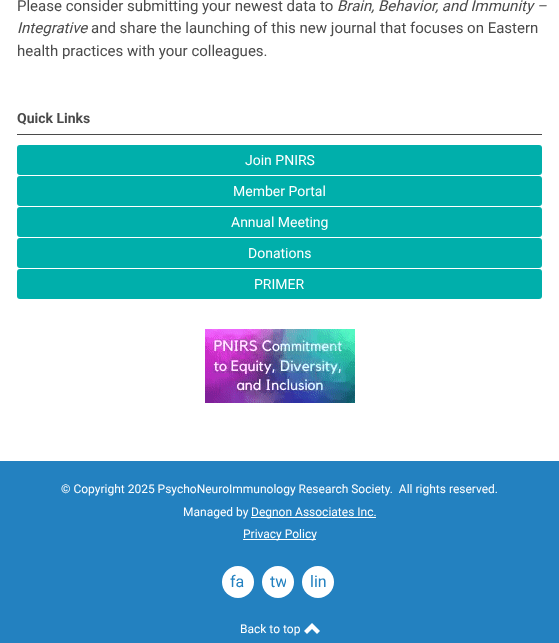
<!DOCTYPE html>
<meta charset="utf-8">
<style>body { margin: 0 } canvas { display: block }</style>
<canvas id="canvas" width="559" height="643"></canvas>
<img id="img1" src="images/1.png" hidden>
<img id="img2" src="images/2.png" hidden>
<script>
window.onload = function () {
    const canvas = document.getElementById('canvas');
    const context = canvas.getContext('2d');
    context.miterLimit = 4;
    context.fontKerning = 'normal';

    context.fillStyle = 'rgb(255, 255, 255)';
    context.fillRect(0, 0, 559, 643);
    context.fillStyle = 'rgb(74, 74, 74)';
    context.fillRect(17, 134, 525, 1);
    context.fillStyle = 'rgb(0, 175, 171)';
    context.beginPath();
    context.roundRect(17, 145, 525, 30, 3);
    context.fill();
    context.beginPath();
    context.roundRect(17, 176, 525, 30, 3);
    context.fill();
    context.beginPath();
    context.roundRect(17, 207, 525, 30, 3);
    context.fill();
    context.beginPath();
    context.roundRect(17, 238, 525, 30, 3);
    context.fill();
    context.beginPath();
    context.roundRect(17, 269, 525, 30, 3);
    context.fill();
    context.drawImage(document.getElementById('img1'), 205, 329, 150, 74);
    context.fillStyle = 'rgb(35, 129, 192)';
    context.fillRect(0, 461, 559, 182);
    context.fillStyle = 'rgb(255, 255, 255)';
    context.fillRect(251, 517, 125, 1);
    context.fillRect(243, 539, 73, 1);
    context.beginPath();
    context.arc(238, 582, 16, 0, 2 * Math.PI);
    context.fill();
    context.beginPath();
    context.arc(278, 582, 16, 0, 2 * Math.PI);
    context.fill();
    context.beginPath();
    context.arc(318, 582, 16, 0, 2 * Math.PI);
    context.fill();
    context.drawImage(document.getElementById('img2'), 304, 623, 16, 11);
    context.font = '15px Roboto';
    context.fillStyle = 'rgb(74, 74, 74)';
    context.fillText('Please consider submitting your newest data to', 17, 11);
    context.font = 'italic 15px Roboto';
    context.fillText('Brain, Behavior, and Immunity –', 337, 11);
    context.fillText('Integrative', 17, 33);
    context.font = '15px Roboto';
    context.fillText('and share the launching of this new journal that focuses on Eastern', 91, 33);
    context.fillText('health practices with your colleagues.', 17, 56);
    context.font = 'bold 14px Roboto';
    context.fillText('Quick Links', 17, 123);
    context.font = '14px Roboto';
    context.fillStyle = 'rgb(255, 255, 255)';
    context.fillText('Join PNIRS', 245, 165);
    context.fillText('Member Portal', 233, 196);
    context.fillText('Annual Meeting', 231, 227);
    context.fillText('Donations', 248, 258);
    context.fillText('PRIMER', 254, 289);
    context.font = '12px Roboto';
    context.fillText('© Copyright 2025 PsychoNeuroImmunology Research Society.  All rights reserved.', 61, 493);
    context.fillText('Managed by', 183, 516);
    context.fillText('Degnon Associates Inc.', 251, 516);
    context.fillText('Privacy Policy', 243, 538);
    context.font = '16px Roboto';
    context.fillStyle = 'rgb(35, 129, 192)';
    context.fillText('fa', 230, 587);
    context.save();
    context.beginPath();
    context.rect(270, 574, 16, 16);
    context.clip();
    context.fillText('tw', 270, 587);
    context.restore();
    context.fillText('lin', 310, 587);
    context.font = '12px Roboto';
    context.fillStyle = 'rgb(255, 255, 255)';
    context.fillText('Back to top', 240, 633);
};
</script>
